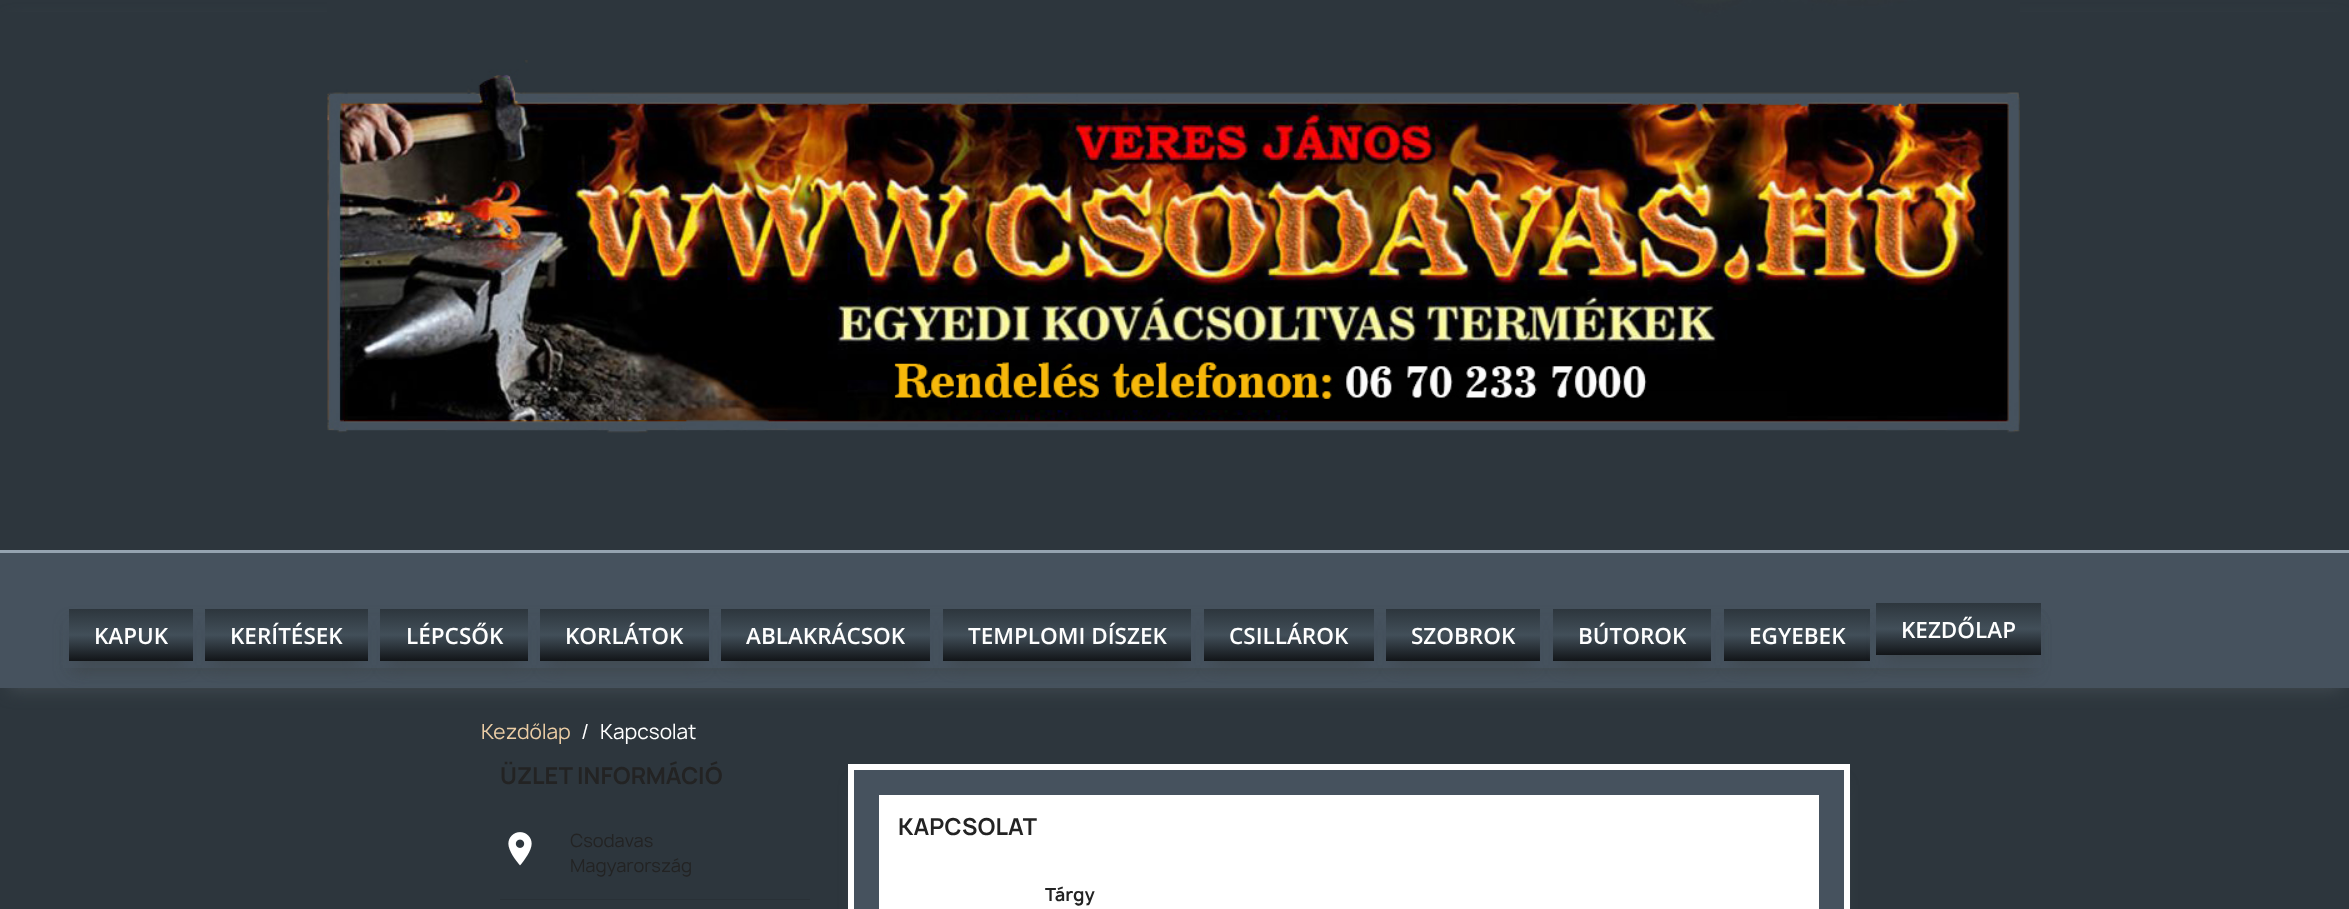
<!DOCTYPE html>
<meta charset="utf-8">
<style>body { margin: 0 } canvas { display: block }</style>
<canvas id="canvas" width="2349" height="909"></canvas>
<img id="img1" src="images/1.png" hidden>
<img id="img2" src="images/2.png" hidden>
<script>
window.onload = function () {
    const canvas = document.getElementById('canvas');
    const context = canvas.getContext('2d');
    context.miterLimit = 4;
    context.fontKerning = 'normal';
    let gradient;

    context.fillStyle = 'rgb(45, 54, 61)';
    context.fillRect(0, 0, 2349, 909);
    context.fillStyle = 'rgb(64, 73, 79)';
    context.filter = 'blur(8px)';
    context.beginPath();
    context.rect(9, 21, 2332, 670);
    context.fill();
    context.filter = 'none';
    context.fillStyle = 'rgb(70, 82, 94)';
    context.fillRect(0, 553, 2349, 135);
    context.fillStyle = 'rgb(45, 54, 61)';
    context.fillRect(0, 12, 2349, 538);
    context.fillStyle = 'rgb(149, 163, 176)';
    context.fillRect(0, 550, 2349, 3);
    context.drawImage(document.getElementById('img1'), 327, 0, 1693, 433);
    context.fillStyle = 'rgb(64, 73, 79)';
    context.filter = 'blur(8px)';
    context.beginPath();
    context.rect(71, 624, 1962, 47);
    context.fill();
    context.filter = 'none';
    context.fillStyle = 'rgb(70, 82, 94)';
    context.fillRect(63, 616, 1978, 52);
    context.fillStyle = 'rgb(64, 73, 79)';
    context.filter = 'blur(8px)';
    context.beginPath();
    context.rect(78, 630, 106, 35);
    context.fill();
    context.filter = 'none';
    gradient = context.createLinearGradient(131, 609, 131, 661);
    gradient.addColorStop(0, 'rgb(45, 54, 61)');
    gradient.addColorStop(0.5, 'rgb(66, 79, 89)');
    gradient.addColorStop(1, 'rgb(18, 21, 24)');
    context.fillStyle = gradient;
    context.fillRect(69, 609, 124, 52);
    context.fillStyle = 'rgb(64, 73, 79)';
    context.filter = 'blur(8px)';
    context.beginPath();
    context.rect(214, 630, 145, 35);
    context.fill();
    context.filter = 'none';
    gradient = context.createLinearGradient(286, 609, 286, 661);
    gradient.addColorStop(0, 'rgb(45, 54, 61)');
    gradient.addColorStop(0.5, 'rgb(66, 79, 89)');
    gradient.addColorStop(1, 'rgb(18, 21, 24)');
    context.fillStyle = gradient;
    context.fillRect(205, 609, 163, 52);
    context.fillStyle = 'rgb(64, 73, 79)';
    context.filter = 'blur(8px)';
    context.beginPath();
    context.rect(389, 630, 130, 35);
    context.fill();
    context.filter = 'none';
    gradient = context.createLinearGradient(454, 609, 454, 661);
    gradient.addColorStop(0, 'rgb(45, 54, 61)');
    gradient.addColorStop(0.5, 'rgb(66, 79, 89)');
    gradient.addColorStop(1, 'rgb(18, 21, 24)');
    context.fillStyle = gradient;
    context.fillRect(380, 609, 148, 52);
    context.fillStyle = 'rgb(64, 73, 79)';
    context.filter = 'blur(8px)';
    context.beginPath();
    context.rect(549, 630, 151, 35);
    context.fill();
    context.filter = 'none';
    gradient = context.createLinearGradient(624, 609, 624, 661);
    gradient.addColorStop(0, 'rgb(45, 54, 61)');
    gradient.addColorStop(0.5, 'rgb(66, 79, 89)');
    gradient.addColorStop(1, 'rgb(18, 21, 24)');
    context.fillStyle = gradient;
    context.fillRect(540, 609, 169, 52);
    context.fillStyle = 'rgb(64, 73, 79)';
    context.filter = 'blur(8px)';
    context.beginPath();
    context.rect(730, 630, 191, 35);
    context.fill();
    context.filter = 'none';
    gradient = context.createLinearGradient(826, 609, 826, 661);
    gradient.addColorStop(0, 'rgb(45, 54, 61)');
    gradient.addColorStop(0.5, 'rgb(66, 79, 89)');
    gradient.addColorStop(1, 'rgb(18, 21, 24)');
    context.fillStyle = gradient;
    context.fillRect(721, 609, 209, 52);
    context.fillStyle = 'rgb(64, 73, 79)';
    context.filter = 'blur(8px)';
    context.beginPath();
    context.rect(951, 630, 232, 35);
    context.fill();
    context.filter = 'none';
    gradient = context.createLinearGradient(1067, 609, 1067, 661);
    gradient.addColorStop(0, 'rgb(45, 54, 61)');
    gradient.addColorStop(0.5, 'rgb(66, 79, 89)');
    gradient.addColorStop(1, 'rgb(18, 21, 24)');
    context.fillStyle = gradient;
    context.fillRect(943, 609, 248, 52);
    context.fillStyle = 'rgb(64, 73, 79)';
    context.filter = 'blur(8px)';
    context.beginPath();
    context.rect(1213, 630, 152, 35);
    context.fill();
    context.filter = 'none';
    gradient = context.createLinearGradient(1289, 609, 1289, 661);
    gradient.addColorStop(0, 'rgb(45, 54, 61)');
    gradient.addColorStop(0.5, 'rgb(66, 79, 89)');
    gradient.addColorStop(1, 'rgb(18, 21, 24)');
    context.fillStyle = gradient;
    context.fillRect(1204, 609, 170, 52);
    context.fillStyle = 'rgb(64, 73, 79)';
    context.filter = 'blur(8px)';
    context.beginPath();
    context.rect(1395, 630, 136, 35);
    context.fill();
    context.filter = 'none';
    gradient = context.createLinearGradient(1463, 609, 1463, 661);
    gradient.addColorStop(0, 'rgb(45, 54, 61)');
    gradient.addColorStop(0.5, 'rgb(66, 79, 89)');
    gradient.addColorStop(1, 'rgb(18, 21, 24)');
    context.fillStyle = gradient;
    context.fillRect(1386, 609, 154, 52);
    context.fillStyle = 'rgb(64, 73, 79)';
    context.filter = 'blur(8px)';
    context.beginPath();
    context.rect(1561, 630, 142, 35);
    context.fill();
    context.filter = 'none';
    gradient = context.createLinearGradient(1632, 609, 1632, 661);
    gradient.addColorStop(0, 'rgb(45, 54, 61)');
    gradient.addColorStop(0.5, 'rgb(66, 79, 89)');
    gradient.addColorStop(1, 'rgb(18, 21, 24)');
    context.fillStyle = gradient;
    context.fillRect(1553, 609, 158, 52);
    context.fillStyle = 'rgb(64, 73, 79)';
    context.filter = 'blur(8px)';
    context.beginPath();
    context.rect(1733, 630, 128, 35);
    context.fill();
    context.filter = 'none';
    gradient = context.createLinearGradient(1797, 609, 1797, 661);
    gradient.addColorStop(0, 'rgb(45, 54, 61)');
    gradient.addColorStop(0.5, 'rgb(66, 79, 89)');
    gradient.addColorStop(1, 'rgb(18, 21, 24)');
    context.fillStyle = gradient;
    context.fillRect(1724, 609, 146, 52);
    context.fillStyle = 'rgb(64, 73, 79)';
    context.filter = 'blur(8px)';
    context.beginPath();
    context.rect(1885, 624, 148, 35);
    context.fill();
    context.filter = 'none';
    gradient = context.createLinearGradient(1959, 603, 1959, 655);
    gradient.addColorStop(0, 'rgb(45, 54, 61)');
    gradient.addColorStop(0.5, 'rgb(66, 79, 89)');
    gradient.addColorStop(1, 'rgb(18, 21, 24)');
    context.fillStyle = gradient;
    context.fillRect(1876, 603, 165, 52);
    context.drawImage(document.getElementById('img2'), 508, 832, 24, 34);
    context.fillStyle = 'rgb(41, 49, 55)';
    context.fillRect(500, 899, 310, 1);
    context.fillStyle = 'rgb(64, 73, 79)';
    context.filter = 'blur(8px)';
    context.beginPath();
    context.rect(856, 785, 985, 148);
    context.fill();
    context.filter = 'none';
    context.fillStyle = 'rgb(70, 82, 94)';
    context.beginPath();
    context.rect(851, 767, 996, 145);
    context.fill();
    context.strokeStyle = 'rgb(255, 255, 255)';
    context.lineWidth = 6;
    context.stroke();
    context.fillStyle = 'rgb(255, 255, 255)';
    context.fillRect(879, 795, 940, 114);
    context.font = '600 22.5px Open Sans';
    context.fillText('KAPUK', 94, 644);
    context.fillText('KERÍTÉSEK', 230, 644);
    context.fillText('LÉPCSŐK', 406, 644);
    context.fillText('KORLÁTOK', 565, 644);
    context.fillText('ABLAKRÁCSOK', 746, 644);
    context.fillText('TEMPLOMI DÍSZEK', 968, 644);
    context.fillText('CSILLÁROK', 1229, 644);
    context.fillText('SZOBROK', 1411, 644);
    context.fillText('BÚTOROK', 1578, 644);
    context.fillText('EGYEBEK', 1749, 644);
    context.fillText('KEZDŐLAP', 1901, 638);
    context.font = '20px Manrope';
    context.fillStyle = 'rgb(235, 205, 165)';
    context.fillText('Kezdőlap', 481, 739);
    context.fillStyle = 'rgb(255, 255, 255)';
    context.fillText('/', 581, 739);
    context.fillText('Kapcsolat', 600, 739);
    context.font = 'bold 22.5px Manrope';
    context.fillStyle = 'rgb(35, 35, 35)';
    context.fillText('ÜZLET INFORMÁCIÓ', 500, 784);
    context.font = '17.5px Manrope';
    context.fillText('Csodavas', 570, 847);
    context.fillText('Magyarország', 570, 872);
    context.font = 'bold 22.5px Manrope';
    context.fillText('KAPCSOLAT', 898, 835);
    context.font = 'bold 17.5px Manrope';
    context.fillText('Tárgy', 1045, 901);
};
</script>
